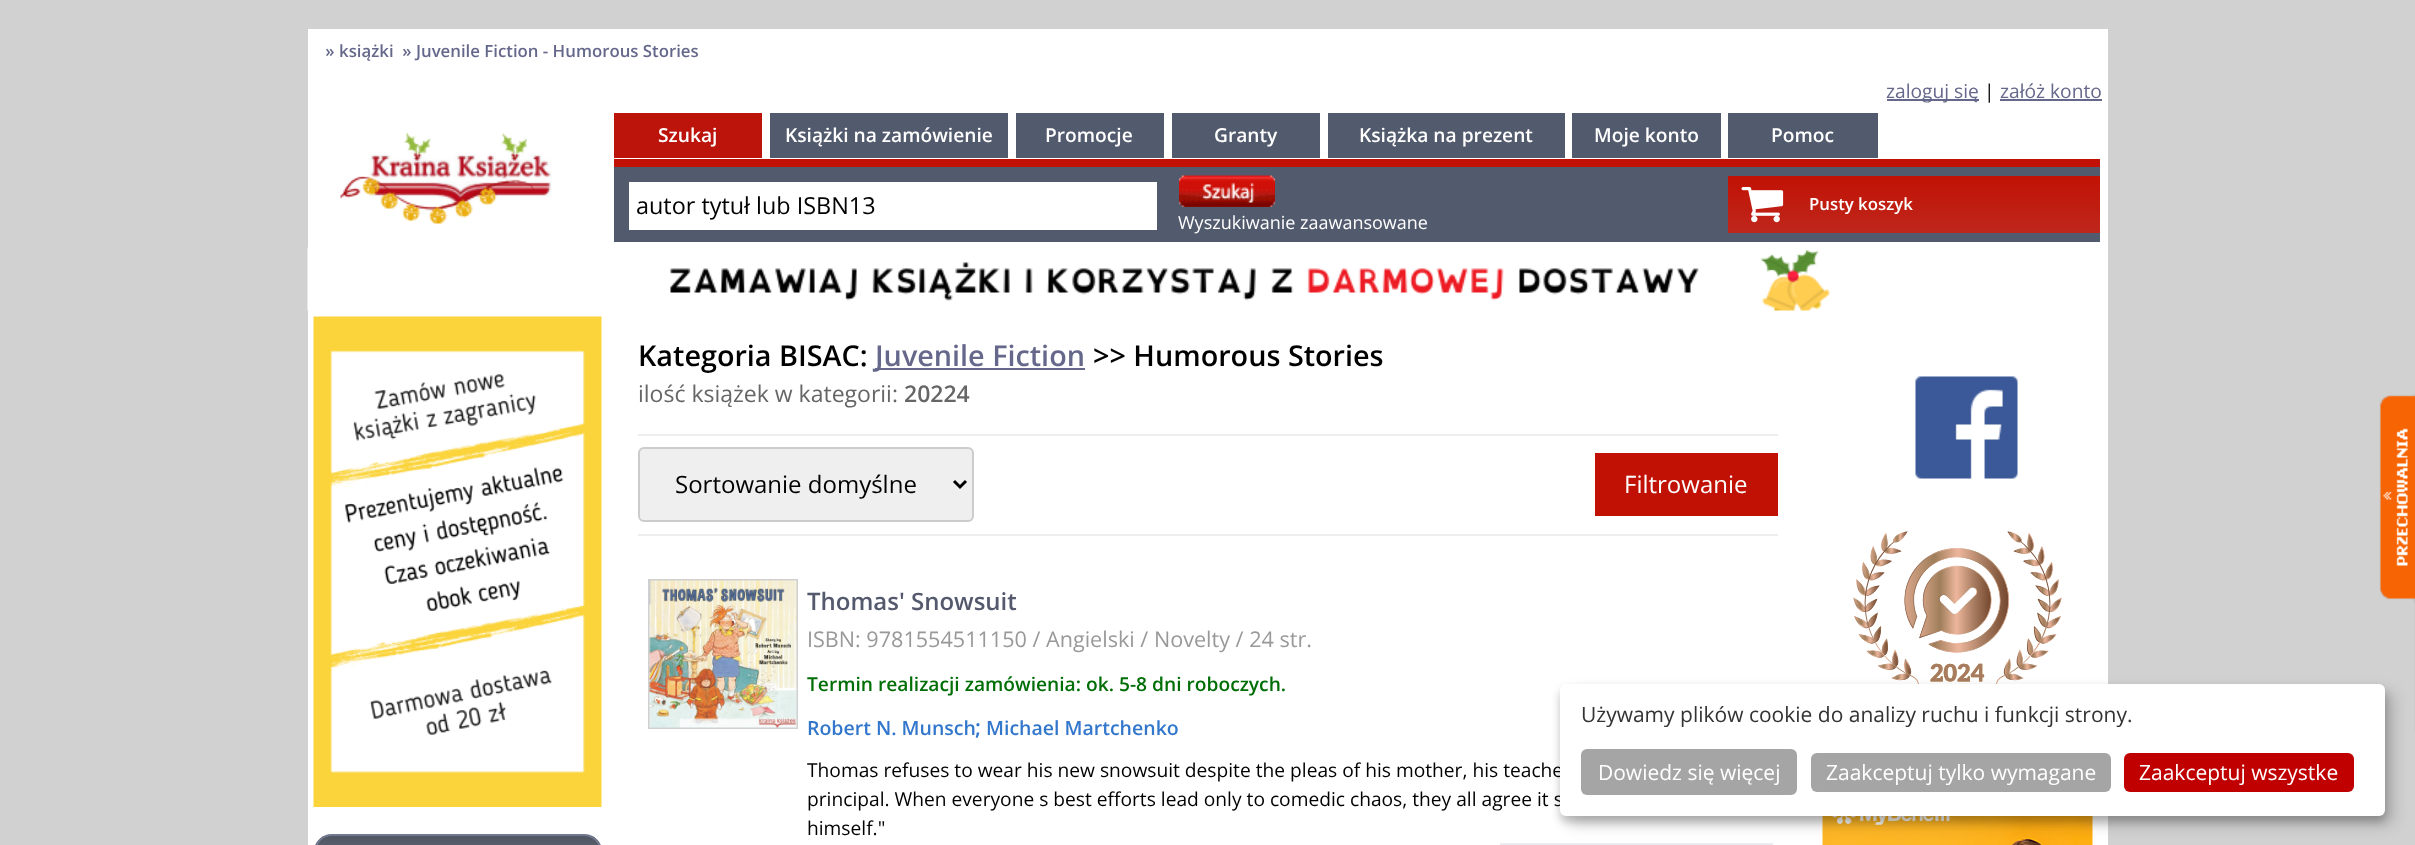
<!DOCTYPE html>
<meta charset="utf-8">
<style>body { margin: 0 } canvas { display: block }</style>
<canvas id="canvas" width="2415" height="845"></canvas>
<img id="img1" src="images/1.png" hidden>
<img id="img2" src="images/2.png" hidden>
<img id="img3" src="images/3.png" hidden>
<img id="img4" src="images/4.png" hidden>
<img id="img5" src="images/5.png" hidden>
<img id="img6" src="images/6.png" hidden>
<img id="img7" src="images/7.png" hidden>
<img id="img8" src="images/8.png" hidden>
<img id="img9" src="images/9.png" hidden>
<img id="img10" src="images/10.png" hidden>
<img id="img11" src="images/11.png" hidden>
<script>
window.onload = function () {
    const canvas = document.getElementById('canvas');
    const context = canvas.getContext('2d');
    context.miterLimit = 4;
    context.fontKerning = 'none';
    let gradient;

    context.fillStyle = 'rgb(209, 209, 209)';
    context.fillRect(0, 0, 2415, 845);
    context.fillStyle = 'rgb(255, 255, 255)';
    context.fillRect(308, 29, 1800, 816);
    context.fillStyle = 'rgb(101, 104, 139)';
    context.fillRect(1887, 99, 92, 2);
    context.fillRect(2000, 99, 102, 2);
    context.drawImage(document.getElementById('img1'), 340, 132, 212, 92);
    context.fillStyle = 'rgb(193, 17, 4)';
    context.fillRect(614, 159, 1486, 8);
    context.fillStyle = 'rgb(188, 20, 11)';
    context.fillRect(614, 113, 148, 45);
    context.fillStyle = 'rgb(82, 90, 109)';
    context.fillRect(770, 113, 238, 45);
    context.fillRect(1016, 113, 148, 45);
    context.fillRect(1172, 113, 148, 45);
    context.fillRect(1328, 113, 237, 45);
    context.fillRect(1572, 113, 149, 45);
    context.fillRect(1728, 113, 150, 45);
    context.fillRect(614, 167, 1486, 75);
    context.fillStyle = 'rgb(255, 255, 255)';
    context.fillRect(629, 182, 528, 48);
    context.drawImage(document.getElementById('img2'), 1179, 175, 96, 32);
    gradient = context.createLinearGradient(1914, 175, 1914, 233);
    gradient.addColorStop(0, 'rgb(193, 17, 4)');
    gradient.addColorStop(1, 'rgb(191, 39, 28)');
    context.fillStyle = gradient;
    context.fillRect(1728, 176, 372, 57);
    context.drawImage(document.getElementById('img3'), 1741, 187, 43, 36);
    context.drawImage(document.getElementById('img4'), 307, 247, 1524, 64);
    context.drawImage(document.getElementById('img5'), 313, 316, 289, 491);
    context.save();
    context.beginPath();
    context.moveTo(332, 834);
    context.lineTo(584, 834);
    context.bezierCurveTo(594, 834, 602, 842, 602, 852);
    context.lineTo(602, 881);
    context.lineTo(314, 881);
    context.lineTo(314, 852);
    context.bezierCurveTo(314, 842, 322, 834, 332, 834);
    context.closePath();
    context.clip();
    gradient = context.createLinearGradient(458, 836, 458, 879);
    gradient.addColorStop(0, 'rgb(80, 87, 97)');
    gradient.addColorStop(1, 'rgb(114, 122, 145)');
    context.fillStyle = gradient;
    context.fillRect(315, 836, 286, 9);
    context.restore();
    context.beginPath();
    context.moveTo(332, 835);
    context.lineTo(584, 835);
    context.bezierCurveTo(593.5, 835, 601, 842.5, 601, 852);
    context.lineTo(601, 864);
    context.lineTo(315, 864);
    context.lineTo(315, 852);
    context.bezierCurveTo(315, 842.5, 322.5, 835, 332, 835);
    context.closePath();
    context.strokeStyle = 'rgb(114, 122, 145)';
    context.lineWidth = 2;
    context.stroke();
    context.fillStyle = 'rgb(238, 238, 238)';
    context.fillRect(638, 534, 1140, 2);
    context.fillStyle = 'rgb(101, 104, 139)';
    context.fillRect(875, 368, 210, 2);
    context.fillStyle = 'rgb(238, 238, 238)';
    context.fillRect(638, 434, 1140, 2);
    context.fillStyle = 'rgb(239, 239, 239)';
    context.beginPath();
    context.roundRect(639, 448, 334, 73, 5);
    context.fill();
    context.strokeStyle = 'rgb(204, 204, 204)';
    context.stroke();
    context.beginPath();
    context.moveTo(954, 481);
    context.lineTo(960, 487);
    context.lineTo(966, 481);
    context.strokeStyle = 'rgb(0, 0, 0)';
    context.lineWidth = 3;
    context.stroke();
    context.fillStyle = 'rgb(193, 17, 4)';
    context.fillRect(1595, 453, 183, 63);
    context.strokeStyle = 'rgb(208, 208, 208)';
    context.lineWidth = 2;
    context.strokeRect(649, 580, 148, 148);
    context.drawImage(document.getElementById('img6'), 649, 580, 148, 148);
    context.fillStyle = 'rgb(233, 235, 240)';
    context.fillRect(1500, 843, 273, 2);
    context.drawImage(document.getElementById('img7'), 1915, 376, 103, 103);
    context.drawImage(document.getElementById('img8'), 1853, 531, 209, 153);
    context.drawImage(document.getElementById('img9'), 1822, 816, 271, 29);
    context.drawImage(document.getElementById('img10'), 2414, 598, 1, 133);
    context.drawImage(document.getElementById('img11'), 2379, 393, 36, 210);
    context.fillStyle = 'rgba(0, 0, 0, 0.19)';
    context.filter = 'blur(7.5px)';
    context.beginPath();
    context.roundRect(1568, 692, 825, 132, 6);
    context.fill();
    context.filter = 'none';
    context.fillStyle = 'rgba(0, 0, 0, 0.2)';
    context.filter = 'blur(4.5px)';
    context.beginPath();
    context.roundRect(1560, 690, 825, 132, 6);
    context.fill();
    context.filter = 'none';
    context.font = '600 16.8px Open Sans';
    context.fillStyle = 'rgb(101, 104, 139)';
    context.fillText(' » książki  » Juvenile Fiction - Humorous Stories', 321, 57);
    context.font = '19.2px Open Sans';
    context.fillText('zaloguj się', 1886, 98);
    context.fillStyle = 'rgb(0, 0, 0)';
    context.fillText('|', 1984, 98);
    context.fillStyle = 'rgb(101, 104, 139)';
    context.fillText('załóż konto', 2000, 98);
    context.font = '600 19.2px Open Sans';
    context.fillStyle = 'rgb(255, 255, 255)';
    context.fillText('Szukaj', 658, 142);
    context.fillText('Książki na zamówienie', 785, 142);
    context.fillText('Promocje', 1045, 142);
    context.fillText('Granty', 1214, 142);
    context.fillText('Książka na prezent', 1359, 142);
    context.fillText('Moje konto', 1594, 142);
    context.fillText('Pomoc', 1771, 142);
    context.font = '23.4px Open Sans';
    context.fillStyle = 'rgb(0, 0, 0)';
    context.fillText('autor tytuł lub ISBN13', 636, 214);
    context.font = '18px Open Sans';
    context.fillStyle = 'rgb(255, 255, 255)';
    context.fillText('Wyszukiwanie zaawansowane', 1178, 229);
    context.font = '600 16.8px Open Sans';
    context.fillText('Pusty koszyk', 1809, 210);
    context.font = '600 28.75px Open Sans';
    context.fillStyle = 'rgb(0, 0, 0)';
    context.fillText('Kategoria BISAC:', 638, 366);
    context.fillStyle = 'rgb(101, 104, 139)';
    context.fillText('Juvenile Fiction', 875, 366);
    context.fillStyle = 'rgb(0, 0, 0)';
    context.fillText('>> Humorous Stories', 1093, 366);
    context.font = '23px Open Sans';
    context.fillStyle = 'rgb(102, 102, 102)';
    context.fillText('ilość książek w kategorii:', 638, 402);
    context.font = '600 23px Open Sans';
    context.fillText('20224', 904, 402);
    context.font = '24px Open Sans';
    context.fillStyle = 'rgb(0, 0, 0)';
    context.fillText('Sortowanie domyślne', 675, 493);
    context.fillStyle = 'rgb(255, 255, 255)';
    context.fillText('Filtrowanie', 1624, 493);
    context.font = '600 24px Open Sans';
    context.fillStyle = 'rgb(84, 89, 109)';
    context.fillText('Thomas\' Snowsuit', 807, 610);
    context.font = '21.6px Open Sans';
    context.fillStyle = 'rgb(153, 153, 153)';
    context.fillText('ISBN: 9781554511150 / Angielski / Novelty / 24 str.', 807, 647);
    context.font = '600 19.2px Open Sans';
    context.fillStyle = 'rgb(0, 110, 6)';
    context.fillText('Termin realizacji zamówienia: ok. 5-8 dni roboczych.', 807, 691);
    context.font = '600 19.5px Open Sans';
    context.fillStyle = 'rgb(51, 119, 204)';
    context.fillText('Robert N. Munsch', 807, 735);
    context.font = '600 21.6px Open Sans';
    context.fillText(';', 975, 735);
    context.font = '600 19.5px Open Sans';
    context.fillText('Michael Martchenko', 986, 735);
    context.font = '19.2px Open Sans';
    context.fillStyle = 'rgb(0, 0, 0)';
    context.fillText('Thomas refuses to wear his new snowsuit despite the pleas of his mother, his teache', 807, 777);
    context.fillText('principal. When everyone s best efforts lead only to comedic chaos, they all agree it s', 807, 806);
    context.fillText('himself."', 807, 835);
    context.fillStyle = 'rgb(255, 255, 255)';
    context.beginPath();
    context.roundRect(1560, 684, 825, 132, 6);
    context.fill();
    context.font = '21px Open Sans';
    context.fillStyle = 'rgb(51, 51, 51)';
    context.fillText('Używamy plików cookie do analizy ruchu i funkcji strony.', 1581, 722);
    context.fillStyle = 'rgb(165, 165, 165)';
    context.beginPath();
    context.roundRect(1581, 749, 216, 46, 6);
    context.fill();
    context.fillStyle = 'rgb(255, 255, 255)';
    context.fillText('Dowiedz się więcej', 1598, 780);
    context.fillStyle = 'rgb(165, 165, 165)';
    context.beginPath();
    context.roundRect(1811, 753, 300, 39, 6);
    context.fill();
    context.fillStyle = 'rgb(255, 255, 255)';
    context.fillText('Zaakceptuj tylko wymagane', 1826, 780);
    context.fillStyle = 'rgb(192, 0, 0)';
    context.beginPath();
    context.roundRect(2124, 753, 230, 39, 6);
    context.fill();
    context.fillStyle = 'rgb(255, 255, 255)';
    context.fillText('Zaakceptuj wszystke', 2139, 780);
};
</script>
